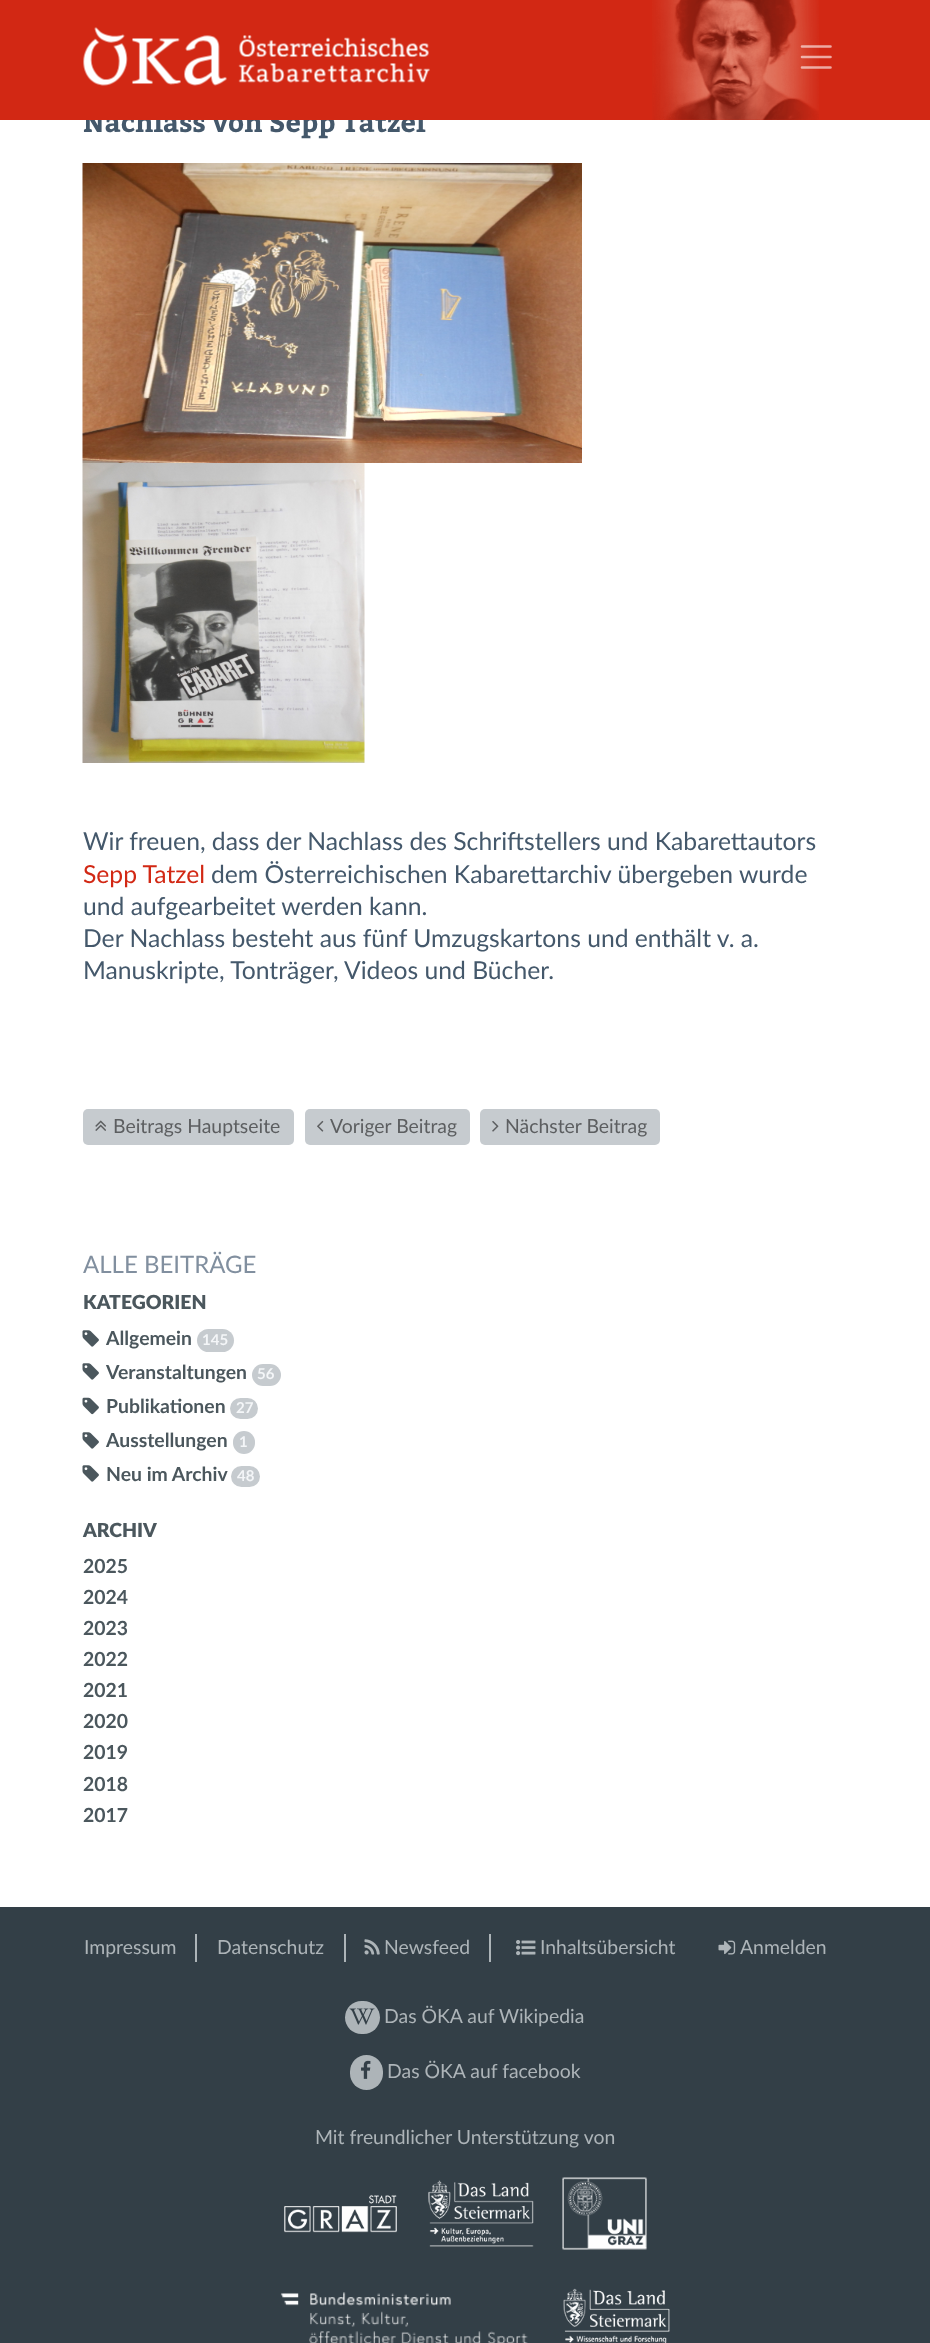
<!DOCTYPE html>
<meta charset="utf-8">
<style>body { margin: 0 } canvas { display: block }</style>
<canvas id="canvas" width="930" height="2343"></canvas>
<img id="img1" src="images/3.png" hidden>
<img id="img2" src="images/4.png" hidden>
<img id="img3" src="images/5.png" hidden>
<img id="img4" src="images/6.png" hidden>
<img id="img5" src="images/7.png" hidden>
<img id="img6" src="images/8.png" hidden>
<img id="img7" src="images/9.png" hidden>
<img id="img8" src="images/10.png" hidden>
<img id="img9" src="images/11.png" hidden>
<img id="img10" src="images/12.png" hidden>
<img id="img11" src="images/13.png" hidden>
<img id="img12" src="images/14.png" hidden>
<img id="img13" src="images/15.png" hidden>
<img id="img14" src="images/16.png" hidden>
<img id="img15" src="images/17.png" hidden>
<img id="img16" src="images/18.png" hidden>
<img id="img17" src="images/19.png" hidden>
<img id="img18" src="images/2.png" hidden>
<img id="img19" src="images/1.png" hidden>
<script>
window.onload = function () {
    const canvas = document.getElementById('canvas');
    const context = canvas.getContext('2d');
    context.miterLimit = 4;
    context.fontKerning = 'normal';

    context.fillStyle = 'rgb(255, 255, 255)';
    context.fillRect(0, 0, 930, 2343);
    context.drawImage(document.getElementById('img1'), 82, 163, 500, 300);
    context.drawImage(document.getElementById('img2'), 82, 463, 283, 300);
    context.fillStyle = 'rgb(198, 203, 207)';
    context.beginPath();
    context.roundRect(83, 1109, 211, 36, 5);
    context.fill();
    context.drawImage(document.getElementById('img3'), 95, 1120, 11, 11);
    context.beginPath();
    context.roundRect(305, 1109, 165, 36, 5);
    context.fill();
    context.drawImage(document.getElementById('img4'), 317, 1120, 7, 12);
    context.beginPath();
    context.roundRect(480, 1109, 180, 36, 5);
    context.fill();
    context.drawImage(document.getElementById('img5'), 492, 1121, 7, 11);
    context.drawImage(document.getElementById('img6'), 82, 1330, 17, 17);
    context.beginPath();
    context.roundRect(197, 1329, 37, 23, 11.5);
    context.fill();
    context.drawImage(document.getElementById('img6'), 82, 1363, 17, 17);
    context.beginPath();
    context.roundRect(252, 1364, 29, 22, 11);
    context.fill();
    context.drawImage(document.getElementById('img7'), 82, 1397, 17, 18);
    context.beginPath();
    context.roundRect(230, 1398, 28, 21, 10.5);
    context.fill();
    context.drawImage(document.getElementById('img6'), 82, 1432, 17, 17);
    context.beginPath();
    context.roundRect(233, 1431, 22, 23, 11);
    context.fill();
    context.drawImage(document.getElementById('img6'), 82, 1465, 17, 17);
    context.beginPath();
    context.roundRect(231, 1466, 29, 21, 10.5);
    context.fill();
    context.fillStyle = 'rgb(51, 63, 71)';
    context.fillRect(0, 1907, 930, 436);
    context.fillStyle = 'rgb(173, 180, 184)';
    context.fillRect(195, 1934, 2, 28);
    context.fillRect(344, 1934, 2, 28);
    context.fillRect(489, 1934, 2, 28);
    context.drawImage(document.getElementById('img8'), 364, 1939, 16, 16);
    context.drawImage(document.getElementById('img9'), 516, 1940, 20, 16);
    context.drawImage(document.getElementById('img10'), 718, 1940, 18, 15);
    context.beginPath();
    context.roundRect(345, 2001, 35, 33, 16.5);
    context.fill();
    context.drawImage(document.getElementById('img11'), 349, 2008, 26, 17);
    context.beginPath();
    context.roundRect(350, 2055, 33, 35, 16.5);
    context.fill();
    context.drawImage(document.getElementById('img12'), 361, 2060, 10, 19);
    context.drawImage(document.getElementById('img13'), 284, 2194, 113, 39);
    context.drawImage(document.getElementById('img14'), 428, 2180, 106, 67);
    context.drawImage(document.getElementById('img15'), 562, 2177, 85, 73);
    context.drawImage(document.getElementById('img16'), 280, 2292, 248, 51);
    context.drawImage(document.getElementById('img17'), 563, 2288, 107, 55);
    context.font = 'bold 27.25px Bitter';
    context.fillStyle = 'rgb(68, 88, 107)';
    context.fillText('Nachlass von Sepp Tatzel', 83, 132);
    context.fillStyle = 'rgb(210, 40, 20)';
    context.fillRect(0, 0, 930, 120);
    context.drawImage(document.getElementById('img18'), 83, 27, 347, 59);
    context.drawImage(document.getElementById('img19'), 652, 0, 167, 120);
    context.beginPath();
    context.moveTo(802, 46.5);
    context.lineTo(830.5, 46.5);
    context.moveTo(802, 57);
    context.lineTo(830.5, 57);
    context.moveTo(802, 67.5);
    context.lineTo(830.5, 67.5);
    context.strokeStyle = 'rgba(255, 255, 255, 0.6)';
    context.lineWidth = 2.6;
    context.lineCap = 'round';
    context.stroke();
    context.font = '24.7px Lato';
    context.fillStyle = 'rgb(68, 88, 107)';
    context.fillText('Wir freuen, dass der Nachlass des Schriftstellers und Kabarettautors', 83, 850);
    context.fillStyle = 'rgb(210, 40, 20)';
    context.fillText('Sepp Tatzel', 83, 883);
    context.fillStyle = 'rgb(68, 88, 107)';
    context.fillText('dem Österreichischen Kabarettarchiv übergeben wurde', 211, 883);
    context.fillText('und aufgearbeitet werden kann.', 83, 915);
    context.fillText('Der Nachlass besteht aus fünf Umzugskartons und enthält v. a.', 83, 947);
    context.fillText('Manuskripte, Tonträger, Videos und Bücher.', 83, 979);
    context.font = '19.4px Lato';
    context.fillStyle = 'rgb(92, 94, 96)';
    context.fillText('Beitrags Hauptseite', 113, 1133);
    context.fillText('Voriger Beitrag', 330, 1133);
    context.fillText('Nächster Beitrag', 505, 1133);
    context.font = '24px Lato';
    context.fillStyle = 'rgb(129, 143, 159)';
    context.fillText('ALLE BEITRÄGE', 83, 1273);
    context.font = '900 19.4px Lato';
    context.fillStyle = 'rgb(75, 87, 93)';
    context.fillText('KATEGORIEN', 83, 1309);
    context.font = 'bold 19.4px Lato';
    context.fillText('Allgemein', 106, 1345);
    context.font = 'bold 15px Lato';
    context.fillStyle = 'rgb(244, 246, 248)';
    context.fillText('145', 202, 1345);
    context.font = 'bold 19.4px Lato';
    context.fillStyle = 'rgb(75, 87, 93)';
    context.fillText('Veranstaltungen', 106, 1379);
    context.font = 'bold 15px Lato';
    context.fillStyle = 'rgb(244, 246, 248)';
    context.fillText('56', 257, 1379);
    context.font = 'bold 19.4px Lato';
    context.fillStyle = 'rgb(75, 87, 93)';
    context.fillText('Publikationen', 106, 1413);
    context.font = 'bold 15px Lato';
    context.fillStyle = 'rgb(244, 246, 248)';
    context.fillText('27', 236, 1413);
    context.font = 'bold 19.4px Lato';
    context.fillStyle = 'rgb(75, 87, 93)';
    context.fillText('Ausstellungen', 106, 1447);
    context.font = 'bold 15px Lato';
    context.fillStyle = 'rgb(244, 246, 248)';
    context.fillText('1', 239, 1447);
    context.font = 'bold 19.4px Lato';
    context.fillStyle = 'rgb(75, 87, 93)';
    context.fillText('Neu im Archiv', 106, 1481);
    context.font = 'bold 15px Lato';
    context.fillStyle = 'rgb(244, 246, 248)';
    context.fillText('48', 237, 1481);
    context.font = '900 19.4px Lato';
    context.fillStyle = 'rgb(75, 87, 93)';
    context.fillText('ARCHIV', 83, 1537);
    context.font = 'bold 19.4px Lato';
    context.fillText('2025', 83, 1573);
    context.fillText('2024', 83, 1604);
    context.fillText('2023', 83, 1635);
    context.fillText('2022', 83, 1666);
    context.fillText('2021', 83, 1697);
    context.fillText('2020', 83, 1728);
    context.fillText('2019', 83, 1759);
    context.fillText('2018', 83, 1791);
    context.fillText('2017', 83, 1822);
    context.font = '19.4px Lato';
    context.fillStyle = 'rgb(173, 180, 184)';
    context.fillText('Impressum', 84, 1954);
    context.fillText('Datenschutz', 217, 1954);
    context.fillText('Newsfeed', 384, 1954);
    context.fillText('Inhaltsübersicht', 540, 1954);
    context.fillText('Anmelden', 740, 1954);
    context.fillText('Das ÖKA auf Wikipedia', 384, 2023);
    context.fillText('Das ÖKA auf facebook', 387, 2078);
    context.fillText('Mit freundlicher Unterstützung von', 315, 2144);
};
</script>
